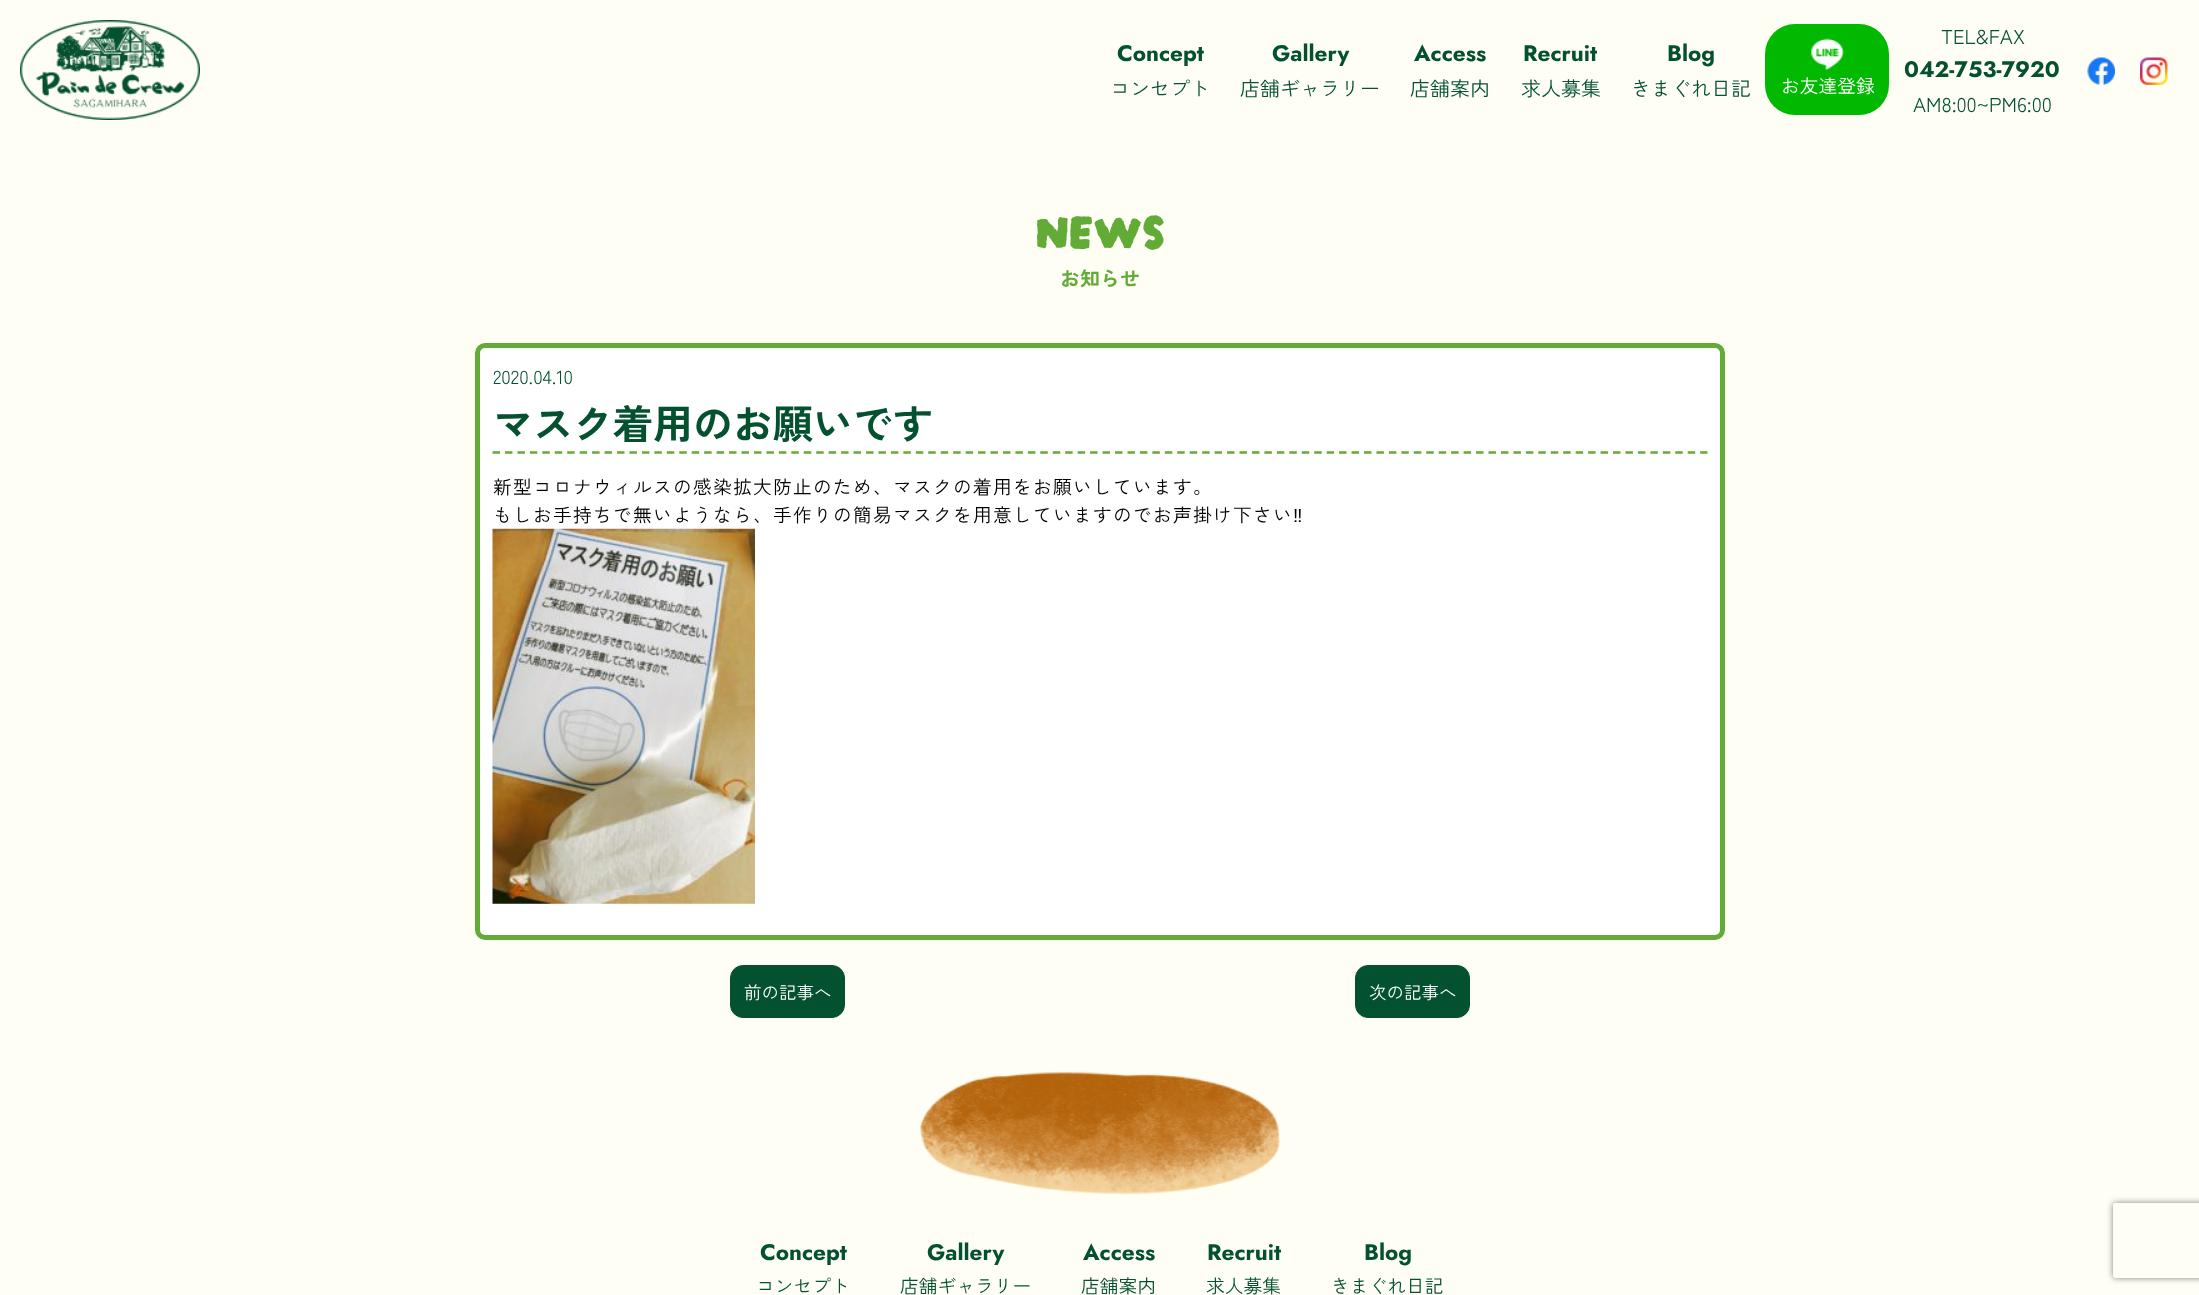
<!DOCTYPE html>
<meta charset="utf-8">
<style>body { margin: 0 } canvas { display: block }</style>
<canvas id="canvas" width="2199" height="1295"></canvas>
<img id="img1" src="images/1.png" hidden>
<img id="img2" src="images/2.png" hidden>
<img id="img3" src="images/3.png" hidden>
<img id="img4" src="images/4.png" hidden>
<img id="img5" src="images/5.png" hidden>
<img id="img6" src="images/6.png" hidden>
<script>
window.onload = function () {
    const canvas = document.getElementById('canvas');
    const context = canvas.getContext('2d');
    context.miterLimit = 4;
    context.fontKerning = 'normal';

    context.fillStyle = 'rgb(255, 254, 244)';
    context.fillRect(0, 0, 2199, 1295);
    context.drawImage(document.getElementById('img1'), 20, 20, 180, 100);
    context.fillStyle = 'rgb(0, 185, 0)';
    context.beginPath();
    context.roundRect(1765, 24, 124, 91, 30);
    context.fill();
    context.drawImage(document.getElementById('img2'), 1811, 38, 33, 32);
    context.drawImage(document.getElementById('img3'), 2087, 57, 28, 28);
    context.drawImage(document.getElementById('img4'), 2140, 57, 28, 28);
    context.fillStyle = 'rgb(255, 255, 255)';
    context.beginPath();
    context.roundRect(477.5, 345.5, 1245, 592, 7.5);
    context.fill();
    context.strokeStyle = 'rgb(98, 171, 55)';
    context.lineWidth = 5;
    context.stroke();
    context.beginPath();
    context.moveTo(492.5, 452.5);
    context.lineTo(1707.5, 452.5);
    context.lineWidth = 2.5;
    context.setLineDash([7.5, 4.95]);
    context.stroke();
    context.drawImage(document.getElementById('img5'), 492, 528, 263, 376);
    context.fillStyle = 'rgb(4, 81, 47)';
    context.beginPath();
    context.roundRect(730.5, 965.5, 114, 52, 12.5);
    context.fill();
    context.strokeStyle = 'rgb(4, 81, 47)';
    context.lineWidth = 1;
    context.setLineDash([]);
    context.stroke();
    context.beginPath();
    context.roundRect(1355.5, 965.5, 114, 52, 12.5);
    context.fill();
    context.stroke();
    context.drawImage(document.getElementById('img6'), 920, 1072, 360, 123);
    context.save();
    context.beginPath();
    context.moveTo(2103, 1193);
    context.lineTo(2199, 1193);
    context.lineTo(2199, 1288);
    context.lineTo(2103, 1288);
    context.closePath();
    context.moveTo(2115.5, 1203);
    context.lineTo(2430.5, 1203);
    context.bezierCurveTo(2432, 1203, 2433, 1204, 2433, 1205.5);
    context.lineTo(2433, 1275.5);
    context.bezierCurveTo(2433, 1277, 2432, 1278, 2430.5, 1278);
    context.lineTo(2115.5, 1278);
    context.bezierCurveTo(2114, 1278, 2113, 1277, 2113, 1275.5);
    context.lineTo(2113, 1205.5);
    context.bezierCurveTo(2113, 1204, 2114, 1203, 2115.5, 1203);
    context.closePath();
    context.clip('evenodd');
    context.fillStyle = 'rgb(128, 128, 128)';
    context.filter = 'blur(3px)';
    context.beginPath();
    context.roundRect(2113, 1203, 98, 75, 2.5);
    context.fill();
    context.filter = 'none';
    context.restore();
    context.font = 'bold 22.5px Jost';
    context.fillText('Concept', 1117, 61);
    context.font = '20px Zen Kaku Gothic New';
    context.fillText('コンセプト', 1110, 96);
    context.font = 'bold 22.5px Jost';
    context.fillText('Gallery', 1272, 61);
    context.font = '20px Zen Kaku Gothic New';
    context.fillText('店舗ギャラリー', 1240, 96);
    context.font = 'bold 22.5px Jost';
    context.fillText('Access', 1414, 61);
    context.font = '20px Zen Kaku Gothic New';
    context.fillText('店舗案内', 1410, 96);
    context.font = 'bold 22.5px Jost';
    context.fillText('Recruit', 1523, 61);
    context.font = '20px Zen Kaku Gothic New';
    context.fillText('求人募集', 1521, 96);
    context.font = 'bold 22.5px Jost';
    context.fillText('Blog', 1667, 61);
    context.font = '20px Zen Kaku Gothic New';
    context.fillText('きまぐれ日記', 1631, 96);
    context.font = '18.75px Zen Kaku Gothic New';
    context.fillStyle = 'rgb(255, 255, 255)';
    context.fillText('お友達登録', 1781, 93);
    context.font = '20px Zen Kaku Gothic New';
    context.fillStyle = 'rgb(4, 81, 47)';
    context.fillText('TEL&FAX', 1941, 44);
    context.font = 'bold 22.5px Jost';
    context.fillText('042-753-7920', 1904, 77);
    context.font = '20px Zen Kaku Gothic New';
    context.fillText('AM8:00~PM6:00', 1913, 112);
    context.font = 'bold 50px Darumadrop One';
    context.fillStyle = 'rgb(98, 171, 55)';
    context.fillText('NEWS', 1035, 248);
    context.font = 'bold 20px Zen Kaku Gothic New';
    context.fillText('お知らせ', 1060, 286);
    context.font = '18.75px Zen Kaku Gothic New';
    context.fillStyle = 'rgb(4, 81, 47)';
    context.fillText('2020.04.10', 493, 384);
    context.font = 'bold 40px Zen Kaku Gothic New';
    context.fillText('マスク着用のお願いです', 493, 439);
    context.letterSpacing = '1.25px';
    context.font = '18.75px Zen Kaku Gothic New';
    context.fillStyle = 'rgb(0, 0, 0)';
    context.fillText('新型コロナウィルスの感染拡大防止のため、マスクの着用をお願いしています。', 493, 494);
    context.fillText('もしお手持ちで無いようなら、手作りの簡易マスクを用意していますのでお声掛け下さい', 493, 522);
    context.font = '18.75px Liberation Sans';
    context.fillText('‼︎', 1293, 522);
    context.letterSpacing = '0px';
    context.font = '17.5px Zen Kaku Gothic New';
    context.fillStyle = 'rgb(255, 255, 255)';
    context.fillText('前の記事へ', 744, 999);
    context.fillText('次の記事へ', 1369, 999);
    context.font = 'bold 22.5px Jost';
    context.fillStyle = 'rgb(4, 81, 47)';
    context.fillText('Concept', 760, 1260);
    context.font = '18.75px Zen Kaku Gothic New';
    context.fillText('コンセプト', 756, 1293);
    context.font = 'bold 22.5px Jost';
    context.fillText('Gallery', 927, 1260);
    context.font = '18.75px Zen Kaku Gothic New';
    context.fillText('店舗ギャラリー', 900, 1293);
    context.font = 'bold 22.5px Jost';
    context.fillText('Access', 1083, 1260);
    context.font = '18.75px Zen Kaku Gothic New';
    context.fillText('店舗案内', 1081, 1293);
    context.font = 'bold 22.5px Jost';
    context.fillText('Recruit', 1207, 1260);
    context.font = '18.75px Zen Kaku Gothic New';
    context.fillText('求人募集', 1206, 1293);
    context.font = 'bold 22.5px Jost';
    context.fillText('Blog', 1364, 1260);
    context.font = '18.75px Zen Kaku Gothic New';
    context.fillText('きまぐれ日記', 1331, 1293);
};
</script>
